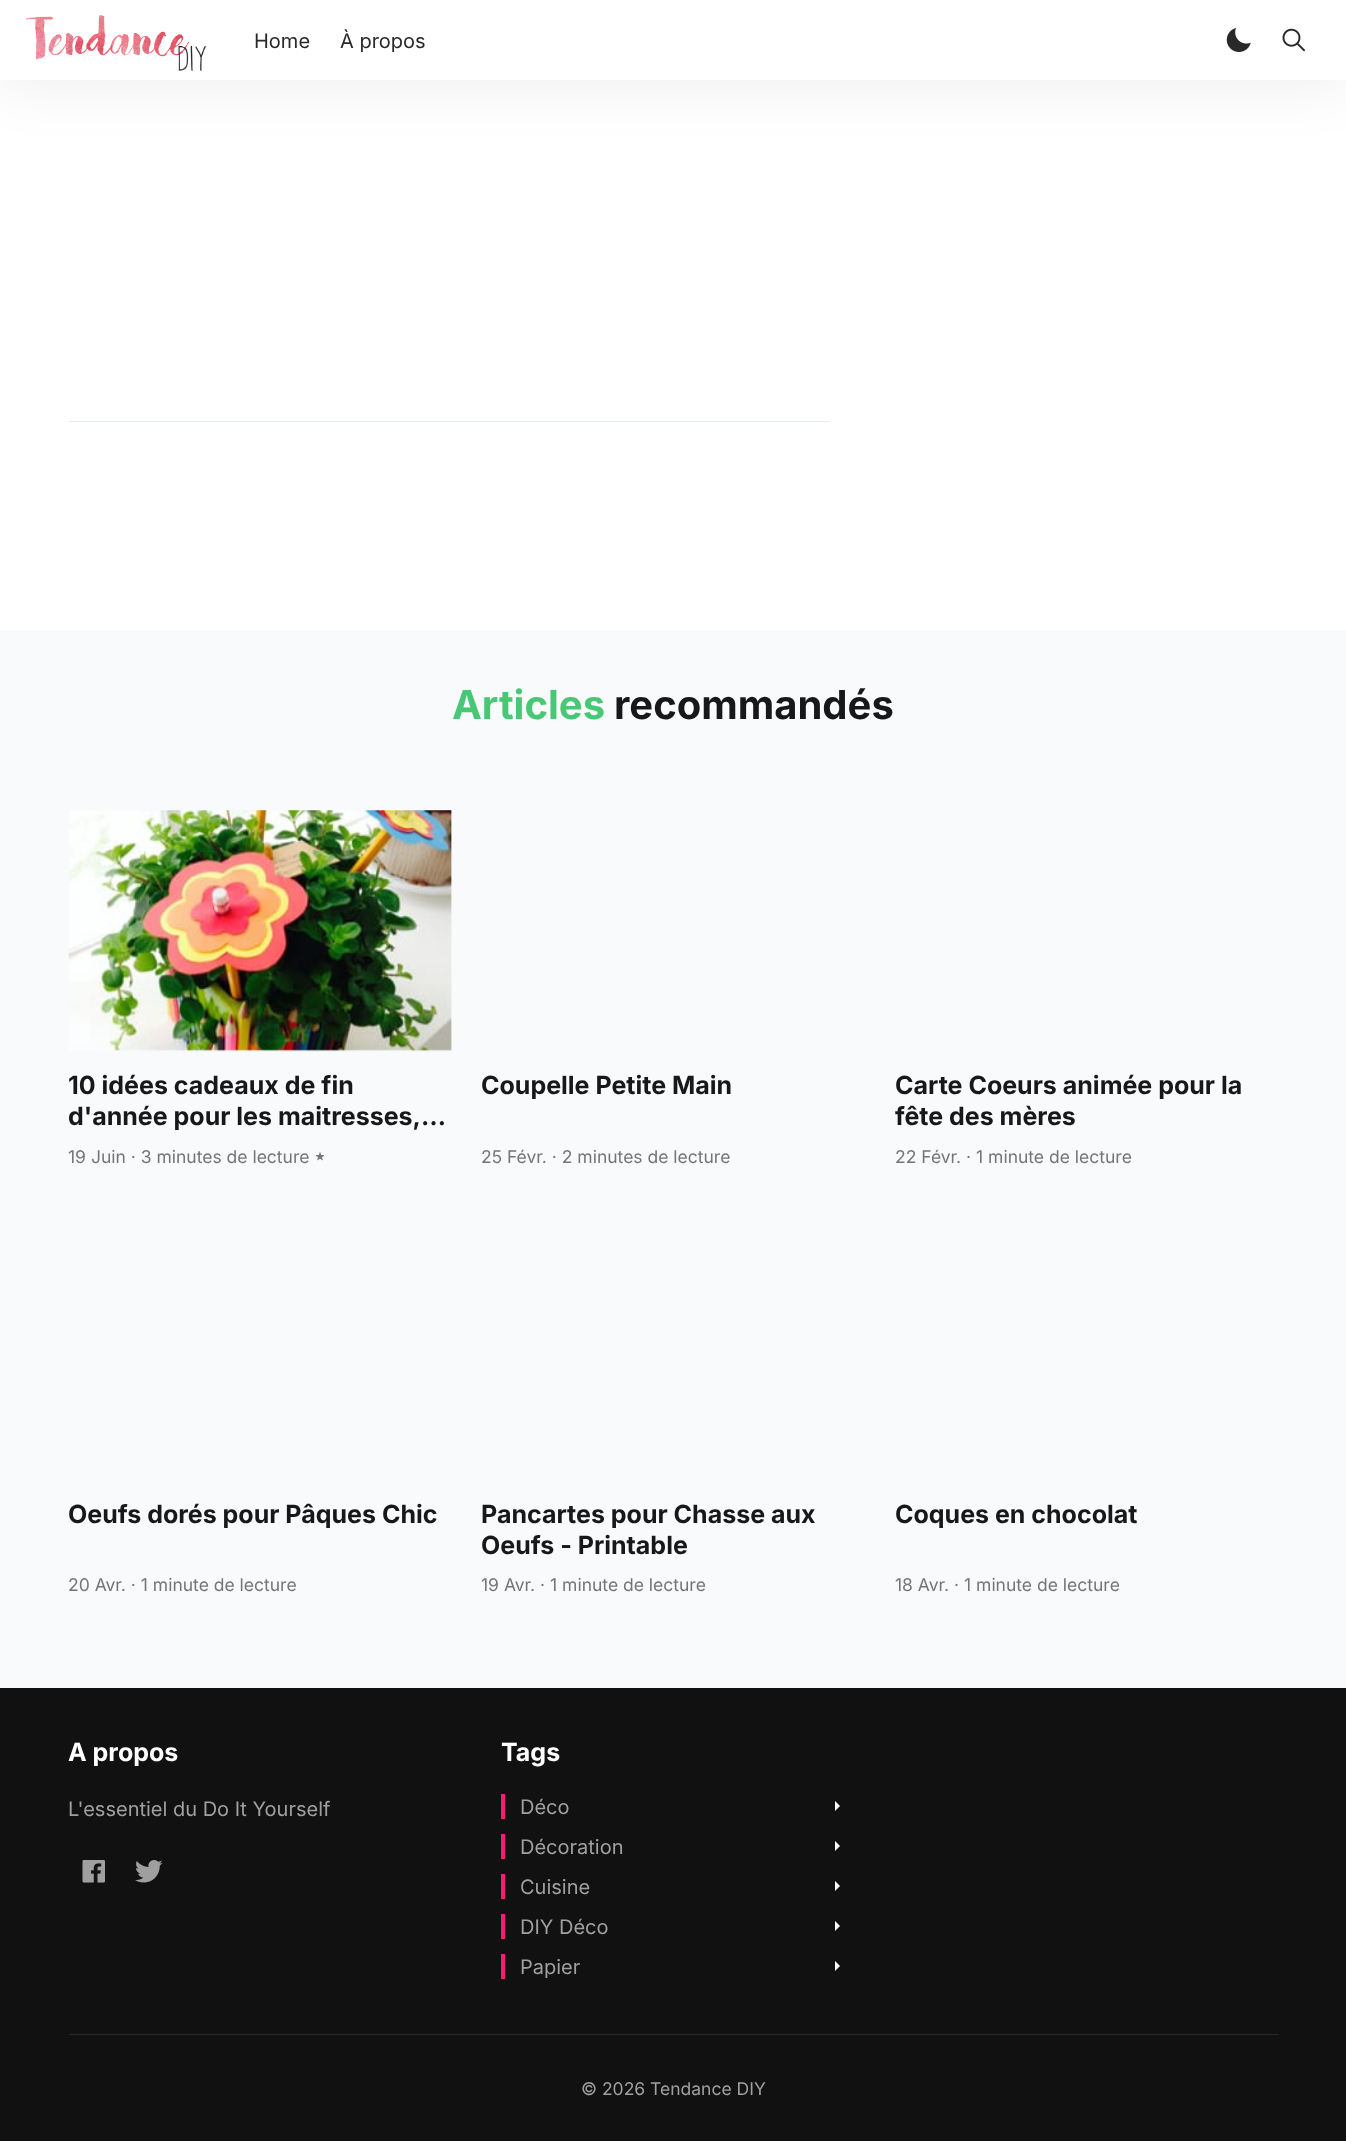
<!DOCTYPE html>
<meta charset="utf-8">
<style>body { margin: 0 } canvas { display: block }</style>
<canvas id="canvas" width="1346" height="2141"></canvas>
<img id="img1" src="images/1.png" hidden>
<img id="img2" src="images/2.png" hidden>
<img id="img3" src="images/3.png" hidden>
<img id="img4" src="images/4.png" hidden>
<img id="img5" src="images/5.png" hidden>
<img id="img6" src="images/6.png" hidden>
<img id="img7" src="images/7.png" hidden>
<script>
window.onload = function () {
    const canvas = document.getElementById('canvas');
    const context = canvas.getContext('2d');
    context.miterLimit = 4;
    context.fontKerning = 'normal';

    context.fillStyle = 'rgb(255, 255, 255)';
    context.fillRect(0, 0, 1346, 2141);
    context.fillStyle = 'rgba(0, 0, 0, 0.07)';
    context.filter = 'blur(29px)';
    context.beginPath();
    context.rect(0, 4, 1346, 80);
    context.fill();
    context.filter = 'none';
    context.fillStyle = 'rgb(255, 255, 255)';
    context.fillRect(0, 0, 1346, 80);
    context.drawImage(document.getElementById('img1'), 26, 15, 180, 57);
    context.drawImage(document.getElementById('img2'), 1226, 28, 25, 24);
    context.drawImage(document.getElementById('img3'), 1282, 28, 23, 24);
    context.fillStyle = 'rgb(226, 236, 236)';
    context.fillRect(69, 421, 760, 1);
    context.fillStyle = 'rgb(248, 250, 252)';
    context.fillRect(0, 630, 1346, 1058);
    context.drawImage(document.getElementById('img4'), 68, 810, 384, 242);
    context.drawImage(document.getElementById('img5'), 315, 1152, 10, 9);
    context.fillStyle = 'rgb(17, 17, 17)';
    context.fillRect(0, 1688, 1346, 453);
    context.drawImage(document.getElementById('img6'), 82, 1860, 23, 23);
    context.drawImage(document.getElementById('img7'), 135, 1860, 28, 23);
    context.fillStyle = 'rgb(255, 26, 117)';
    context.fillRect(501, 1794, 4, 25);
    context.fillStyle = 'rgb(255, 255, 255)';
    context.beginPath();
    context.moveTo(835, 1811);
    context.lineTo(835, 1801);
    context.lineTo(840, 1806);
    context.closePath();
    context.fill();
    context.fillStyle = 'rgb(255, 26, 117)';
    context.fillRect(501, 1834, 4, 25);
    context.fillStyle = 'rgb(255, 255, 255)';
    context.beginPath();
    context.moveTo(835, 1851);
    context.lineTo(835, 1841);
    context.lineTo(840, 1846);
    context.closePath();
    context.fill();
    context.fillStyle = 'rgb(255, 26, 117)';
    context.fillRect(501, 1874, 4, 25);
    context.fillStyle = 'rgb(255, 255, 255)';
    context.beginPath();
    context.moveTo(835, 1891);
    context.lineTo(835, 1881);
    context.lineTo(840, 1886);
    context.closePath();
    context.fill();
    context.fillStyle = 'rgb(255, 26, 117)';
    context.fillRect(501, 1914, 4, 25);
    context.fillStyle = 'rgb(255, 255, 255)';
    context.beginPath();
    context.moveTo(835, 1931);
    context.lineTo(835, 1921);
    context.lineTo(840, 1926);
    context.closePath();
    context.fill();
    context.fillStyle = 'rgb(255, 26, 117)';
    context.fillRect(501, 1954, 4, 25);
    context.fillStyle = 'rgb(255, 255, 255)';
    context.beginPath();
    context.moveTo(835, 1971);
    context.lineTo(835, 1961);
    context.lineTo(840, 1966);
    context.closePath();
    context.fill();
    context.fillStyle = 'rgb(41, 41, 41)';
    context.fillRect(69, 2034, 1210, 1);
    context.font = '20px Inter';
    context.fillText('Home', 254, 48);
    context.fillText('À propos', 340, 48);
    context.font = 'bold 40px Inter';
    context.fillStyle = 'rgb(72, 199, 116)';
    context.fillText('Articles', 452, 719);
    context.fillStyle = 'rgb(24, 24, 27)';
    context.fillText('recommandés', 614, 719);
    context.font = 'bold 25px Inter';
    context.fillText('10 idées cadeaux de fin', 68, 1094);
    context.fillText('d\'année pour les maitresses,…', 68, 1125);
    context.font = '17.5px Inter';
    context.fillStyle = 'rgb(117, 117, 117)';
    context.fillText('19 Juin · 3 minutes de lecture', 68, 1163);
    context.font = 'bold 25px Inter';
    context.fillStyle = 'rgb(24, 24, 27)';
    context.fillText('Coupelle Petite Main', 481, 1094);
    context.font = '17.5px Inter';
    context.fillStyle = 'rgb(117, 117, 117)';
    context.fillText('25 Févr. · 2 minutes de lecture', 481, 1163);
    context.font = 'bold 25px Inter';
    context.fillStyle = 'rgb(24, 24, 27)';
    context.fillText('Carte Coeurs animée pour la', 895, 1094);
    context.fillText('fête des mères', 895, 1125);
    context.font = '17.5px Inter';
    context.fillStyle = 'rgb(117, 117, 117)';
    context.fillText('22 Févr. · 1 minute de lecture', 895, 1163);
    context.font = 'bold 25px Inter';
    context.fillStyle = 'rgb(24, 24, 27)';
    context.fillText('Oeufs dorés pour Pâques Chic', 68, 1523);
    context.font = '17.5px Inter';
    context.fillStyle = 'rgb(117, 117, 117)';
    context.fillText('20 Avr. · 1 minute de lecture', 68, 1591);
    context.font = 'bold 25px Inter';
    context.fillStyle = 'rgb(24, 24, 27)';
    context.fillText('Pancartes pour Chasse aux', 481, 1523);
    context.fillText('Oeufs - Printable', 481, 1554);
    context.font = '17.5px Inter';
    context.fillStyle = 'rgb(117, 117, 117)';
    context.fillText('19 Avr. · 1 minute de lecture', 481, 1591);
    context.font = 'bold 25px Inter';
    context.fillStyle = 'rgb(24, 24, 27)';
    context.fillText('Coques en chocolat', 895, 1523);
    context.font = '17.5px Inter';
    context.fillStyle = 'rgb(117, 117, 117)';
    context.fillText('18 Avr. · 1 minute de lecture', 895, 1591);
    context.font = 'bold 25px Inter';
    context.fillStyle = 'rgb(255, 255, 255)';
    context.fillText('A propos', 68, 1761);
    context.font = '20px Inter';
    context.fillStyle = 'rgb(160, 160, 160)';
    context.fillText('L\'essentiel du Do It Yourself', 68, 1816);
    context.font = 'bold 25px Inter';
    context.fillStyle = 'rgb(255, 255, 255)';
    context.fillText('Tags', 501, 1761);
    context.font = '20px Inter';
    context.fillStyle = 'rgb(160, 160, 160)';
    context.fillText('Déco', 520, 1814);
    context.fillText('Décoration', 520, 1854);
    context.fillText('Cuisine', 520, 1894);
    context.fillText('DIY Déco', 520, 1934);
    context.fillText('Papier', 520, 1974);
    context.font = '17.5px Inter';
    context.fillText('© 2026 Tendance DIY', 581, 2095);
};
</script>
